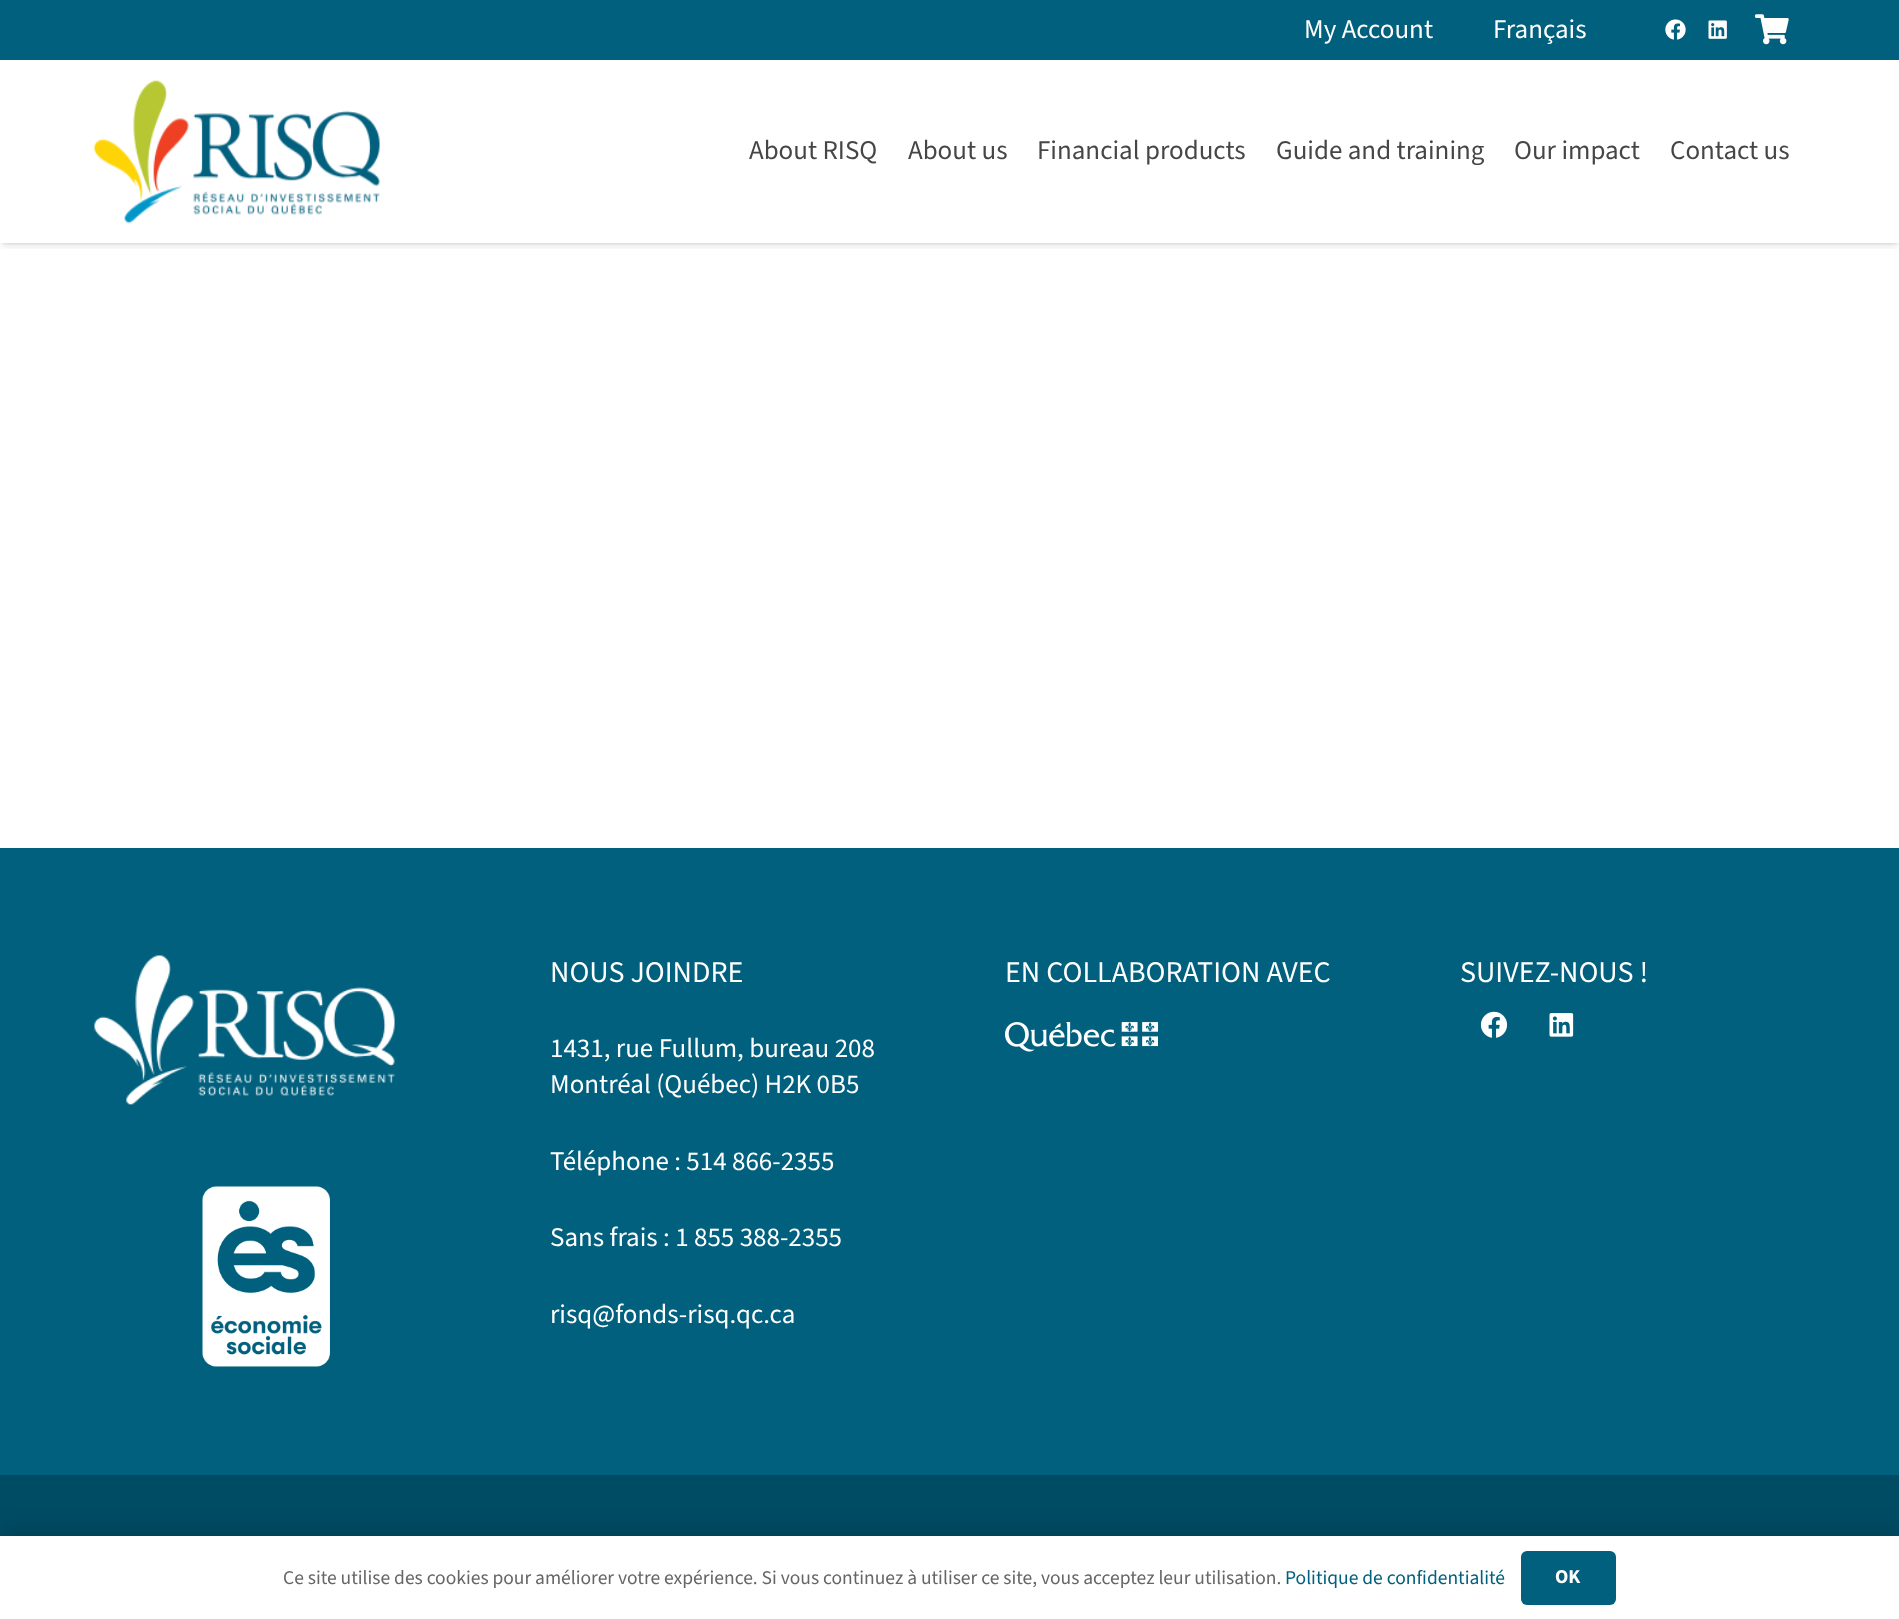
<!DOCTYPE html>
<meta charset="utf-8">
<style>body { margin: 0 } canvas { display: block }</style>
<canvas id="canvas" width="1899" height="1619"></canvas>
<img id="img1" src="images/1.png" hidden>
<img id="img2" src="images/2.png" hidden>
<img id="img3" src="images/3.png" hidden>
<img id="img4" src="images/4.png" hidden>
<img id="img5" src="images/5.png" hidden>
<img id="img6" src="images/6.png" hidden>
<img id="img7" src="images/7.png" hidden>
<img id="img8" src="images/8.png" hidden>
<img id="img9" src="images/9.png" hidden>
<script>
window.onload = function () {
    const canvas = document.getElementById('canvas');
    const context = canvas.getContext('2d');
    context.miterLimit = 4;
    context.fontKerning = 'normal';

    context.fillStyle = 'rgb(255, 255, 255)';
    context.fillRect(0, 0, 1899, 1619);
    context.fillStyle = 'rgb(0, 96, 125)';
    context.fillRect(0, 0, 1899, 60);
    context.drawImage(document.getElementById('img1'), 1665, 19, 21, 21);
    context.drawImage(document.getElementById('img2'), 1708, 20, 19, 19);
    context.drawImage(document.getElementById('img3'), 1755, 14, 34, 31);
    context.save();
    context.beginPath();
    context.rect(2, 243, 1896, 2);
    context.clip();
    context.fillStyle = 'rgba(0, 0, 0, 0.05)';
    context.filter = 'blur(1px)';
    context.beginPath();
    context.rect(2, 65, 1896, 180);
    context.fill();
    context.filter = 'none';
    context.restore();
    context.save();
    context.beginPath();
    context.rect(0, 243, 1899, 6);
    context.clip();
    context.fillStyle = 'rgba(0, 0, 0, 0.1)';
    context.filter = 'blur(4px)';
    context.beginPath();
    context.rect(2, 66, 1896, 180);
    context.fill();
    context.filter = 'none';
    context.restore();
    context.drawImage(document.getElementById('img4'), 94, 80, 286, 144);
    context.fillRect(0, 848, 1899, 627);
    context.drawImage(document.getElementById('img5'), 94, 955, 301, 150);
    context.drawImage(document.getElementById('img6'), 202, 1186, 128, 181);
    context.drawImage(document.getElementById('img7'), 1005, 1022, 153, 30);
    context.drawImage(document.getElementById('img8'), 1480, 1011, 28, 27);
    context.drawImage(document.getElementById('img9'), 1549, 1013, 25, 24);
    context.fillStyle = 'rgb(0, 76, 101)';
    context.fillRect(0, 1475, 1899, 61);
    context.fillStyle = 'rgba(0, 0, 0, 0.15)';
    context.filter = 'blur(11px)';
    context.beginPath();
    context.rect(0, 1529, 1899, 84);
    context.fill();
    context.filter = 'none';
    context.fillStyle = 'rgb(255, 255, 255)';
    context.fillRect(0, 1536, 1899, 83);
    context.fillStyle = 'rgb(0, 96, 125)';
    context.beginPath();
    context.roundRect(1521, 1551, 95, 54, 6);
    context.fill();
    context.font = '27px "Source Sans 3"';
    context.fillStyle = 'rgb(255, 255, 255)';
    context.fillText('My Account', 1304, 38);
    context.fillText('Français', 1493, 38);
    context.fillStyle = 'rgb(70, 70, 70)';
    context.fillText('About RISQ', 749, 159);
    context.fillText('About us', 908, 159);
    context.fillText('Financial products', 1037, 159);
    context.fillText('Guide and training', 1276, 159);
    context.fillText('Our impact', 1514, 159);
    context.fillText('Contact us', 1670, 159);
    context.font = '30px "Source Sans 3"';
    context.fillStyle = 'rgb(255, 255, 255)';
    context.fillText('NOUS JOINDRE', 550, 982);
    context.font = '27px "Source Sans 3"';
    context.fillText('1431, rue Fullum, bureau 208', 550, 1057);
    context.fillText('Montréal (Québec) H2K 0B5', 550, 1093);
    context.fillText('Téléphone : 514 866-2355', 550, 1170);
    context.fillText('Sans frais : 1 855 388-2355', 550, 1246);
    context.fillText('risq@fonds-risq.qc.ca', 550, 1323);
    context.font = '30px "Source Sans 3"';
    context.fillText('EN COLLABORATION AVEC', 1005, 982);
    context.fillText('SUIVEZ-NOUS !', 1460, 982);
    context.font = '19.5px "Source Sans 3"';
    context.fillStyle = 'rgb(102, 102, 102)';
    context.fillText('Ce site utilise des cookies pour améliorer votre expérience. Si vous continuez à utiliser ce site, vous acceptez leur utilisation.', 283, 1584);
    context.fillStyle = 'rgb(0, 96, 125)';
    context.fillText('Politique de confidentialité', 1285, 1584);
    context.font = 'bold 19.5px "Source Sans 3"';
    context.fillStyle = 'rgb(255, 255, 255)';
    context.fillText('OK', 1555, 1583);
};
</script>
